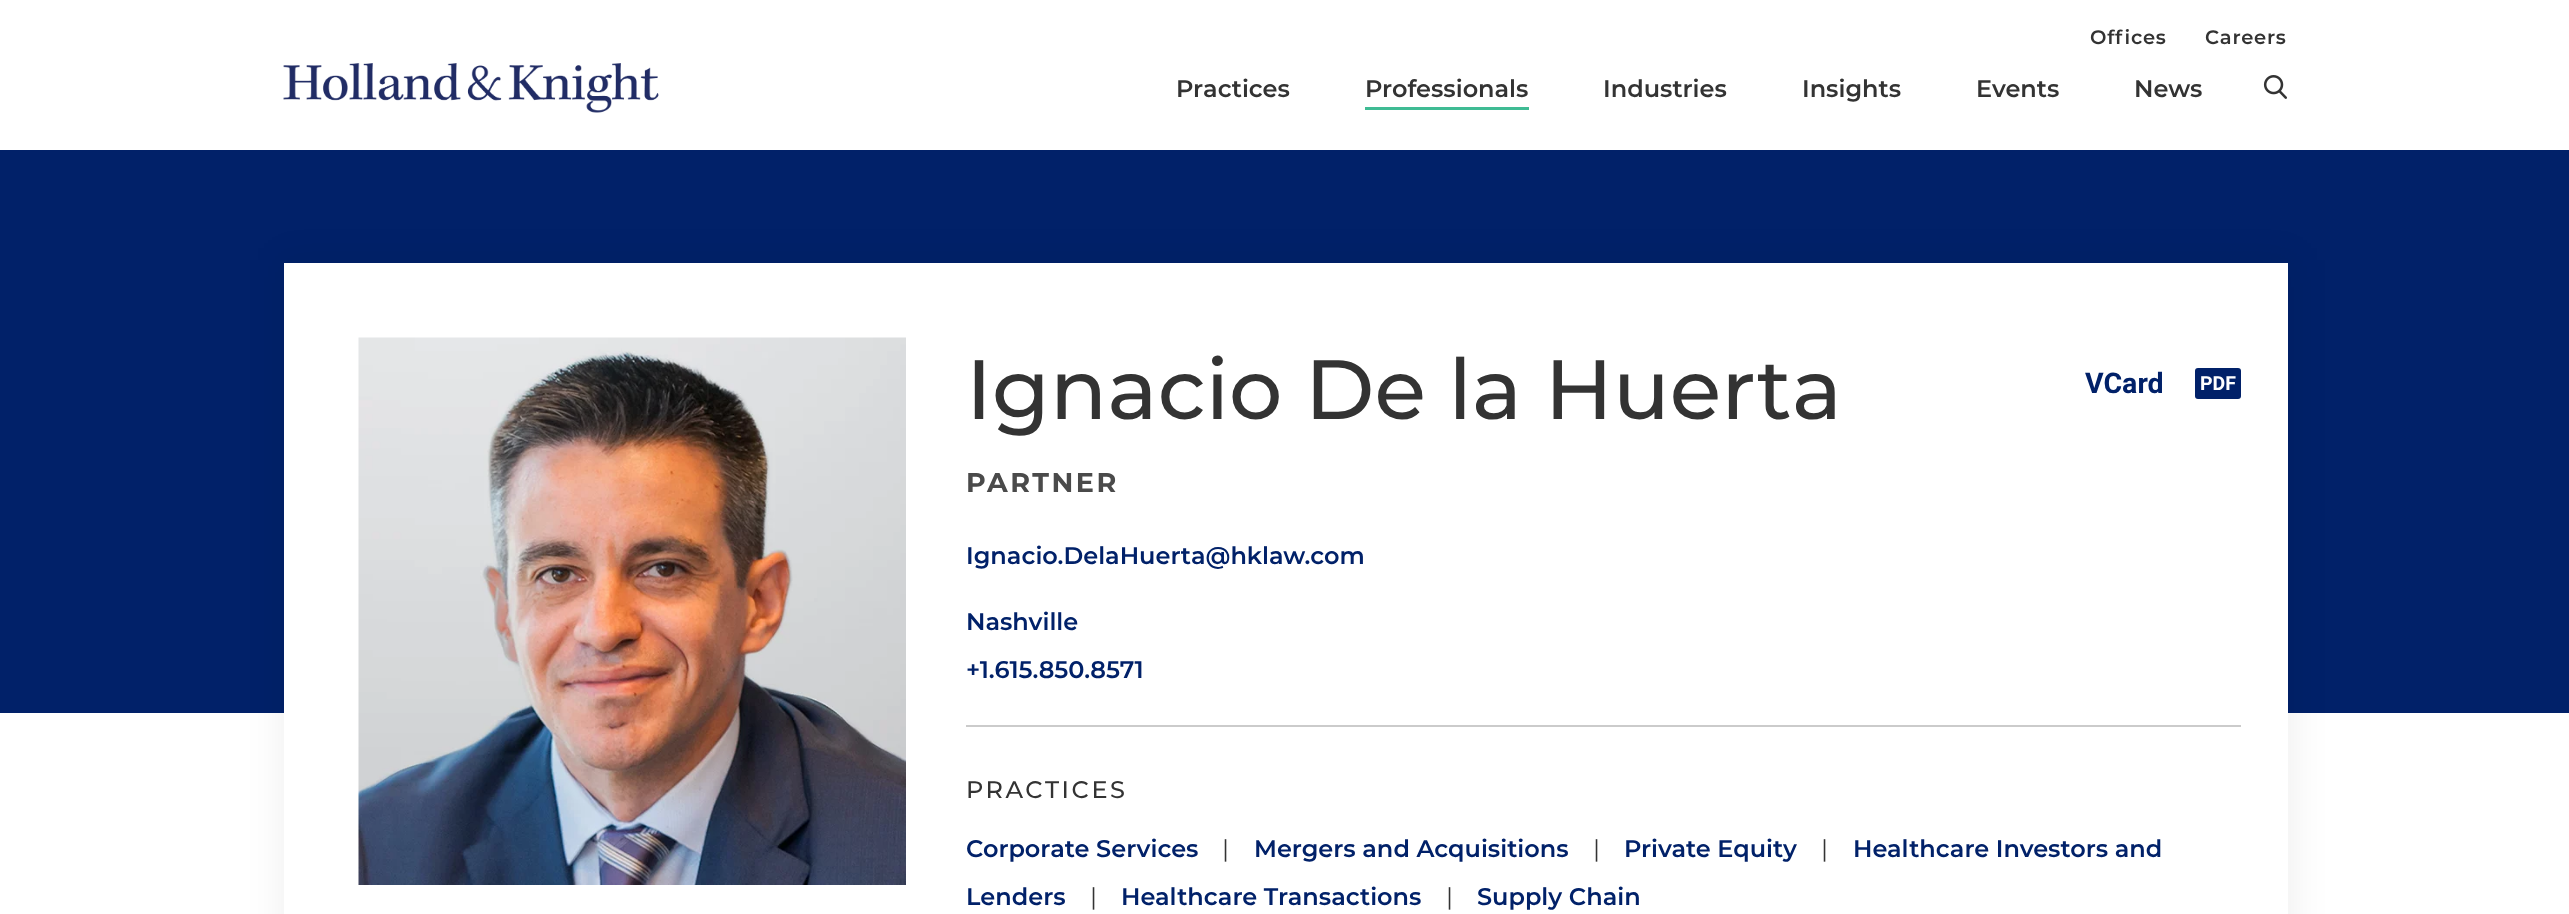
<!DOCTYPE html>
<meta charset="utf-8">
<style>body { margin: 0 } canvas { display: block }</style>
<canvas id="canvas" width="2569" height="914"></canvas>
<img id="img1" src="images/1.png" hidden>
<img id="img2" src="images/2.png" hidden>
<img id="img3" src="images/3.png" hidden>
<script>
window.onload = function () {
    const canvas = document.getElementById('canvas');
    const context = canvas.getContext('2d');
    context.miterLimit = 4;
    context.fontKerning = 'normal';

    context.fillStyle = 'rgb(255, 255, 255)';
    context.fillRect(0, 0, 2569, 914);
    context.drawImage(document.getElementById('img1'), 283, 63, 376, 50);
    context.fillStyle = 'rgb(63, 187, 148)';
    context.fillRect(1365, 107, 164, 3);
    context.drawImage(document.getElementById('img2'), 2263, 75, 24, 24);
    context.fillStyle = 'rgb(1, 33, 105)';
    context.fillRect(0, 150, 2569, 563);
    context.fillStyle = 'rgba(0, 0, 0, 0.06)';
    context.filter = 'blur(18px)';
    context.beginPath();
    context.rect(281, 260, 2013, 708);
    context.fill();
    context.filter = 'none';
    context.fillStyle = 'rgb(255, 255, 255)';
    context.fillRect(284, 263, 2004, 651);
    context.drawImage(document.getElementById('img3'), 358, 337, 548, 548);
    context.fillStyle = 'rgb(1, 33, 105)';
    context.beginPath();
    context.roundRect(2195, 368, 46, 31, 3);
    context.fill();
    context.fillStyle = 'rgb(203, 203, 203)';
    context.fillRect(966, 725, 1275, 2);
    context.letterSpacing = '0.75px';
    context.font = '600 19.5px Montserrat';
    context.fillStyle = 'rgb(51, 51, 51)';
    context.fillText('Offices', 2090, 44);
    context.fillText('Careers', 2205, 44);
    context.letterSpacing = '0px';
    context.font = '600 24px Montserrat';
    context.fillText('Practices', 1176, 97);
    context.fillText('Professionals', 1365, 97);
    context.fillText('Industries', 1603, 97);
    context.fillText('Insights', 1802, 97);
    context.fillText('Events', 1976, 97);
    context.fillText('News', 2134, 97);
    context.font = '500 84px Montserrat';
    context.fillText('Ignacio De la Huerta', 966, 419);
    context.letterSpacing = '2.5px';
    context.font = 'bold 27px Montserrat';
    context.fillStyle = 'rgb(74, 74, 74)';
    context.fillText('PARTNER', 966, 492);
    context.letterSpacing = '0px';
    context.font = 'bold 28.5px Roboto';
    context.fillStyle = 'rgb(1, 33, 105)';
    context.fillText('VCard', 2085, 393);
    context.font = 'bold 19.5px Roboto';
    context.fillStyle = 'rgb(255, 255, 255)';
    context.fillText('PDF', 2200, 390);
    context.font = '600 24px Montserrat';
    context.fillStyle = 'rgb(1, 33, 105)';
    context.fillText('Ignacio.DelaHuerta@hklaw.com', 966, 564);
    context.fillText('Nashville', 966, 630);
    context.fillText('+1.615.850.8571', 966, 678);
    context.letterSpacing = '2.5px';
    context.font = '500 24px Montserrat';
    context.fillStyle = 'rgb(51, 51, 51)';
    context.fillText('PRACTICES', 966, 798);
    context.letterSpacing = '0px';
    context.font = '600 24px Montserrat';
    context.fillStyle = 'rgb(1, 33, 105)';
    context.fillText('Corporate Services', 966, 857);
    context.font = '24px Montserrat';
    context.fillStyle = 'rgb(51, 51, 51)';
    context.fillText('|', 1222, 857);
    context.font = '600 24px Montserrat';
    context.fillStyle = 'rgb(1, 33, 105)';
    context.fillText('Mergers and Acquisitions', 1254, 857);
    context.font = '24px Montserrat';
    context.fillStyle = 'rgb(51, 51, 51)';
    context.fillText('|', 1593, 857);
    context.font = '600 24px Montserrat';
    context.fillStyle = 'rgb(1, 33, 105)';
    context.fillText('Private Equity', 1624, 857);
    context.font = '24px Montserrat';
    context.fillStyle = 'rgb(51, 51, 51)';
    context.fillText('|', 1821, 857);
    context.font = '600 24px Montserrat';
    context.fillStyle = 'rgb(1, 33, 105)';
    context.fillText('Healthcare Investors and', 1853, 857);
    context.fillText('Lenders', 966, 905);
    context.font = '24px Montserrat';
    context.fillStyle = 'rgb(51, 51, 51)';
    context.fillText('|', 1090, 905);
    context.font = '600 24px Montserrat';
    context.fillStyle = 'rgb(1, 33, 105)';
    context.fillText('Healthcare Transactions', 1121, 905);
    context.font = '24px Montserrat';
    context.fillStyle = 'rgb(51, 51, 51)';
    context.fillText('|', 1446, 905);
    context.font = '600 24px Montserrat';
    context.fillStyle = 'rgb(1, 33, 105)';
    context.fillText('Supply Chain', 1477, 905);
};
</script>
